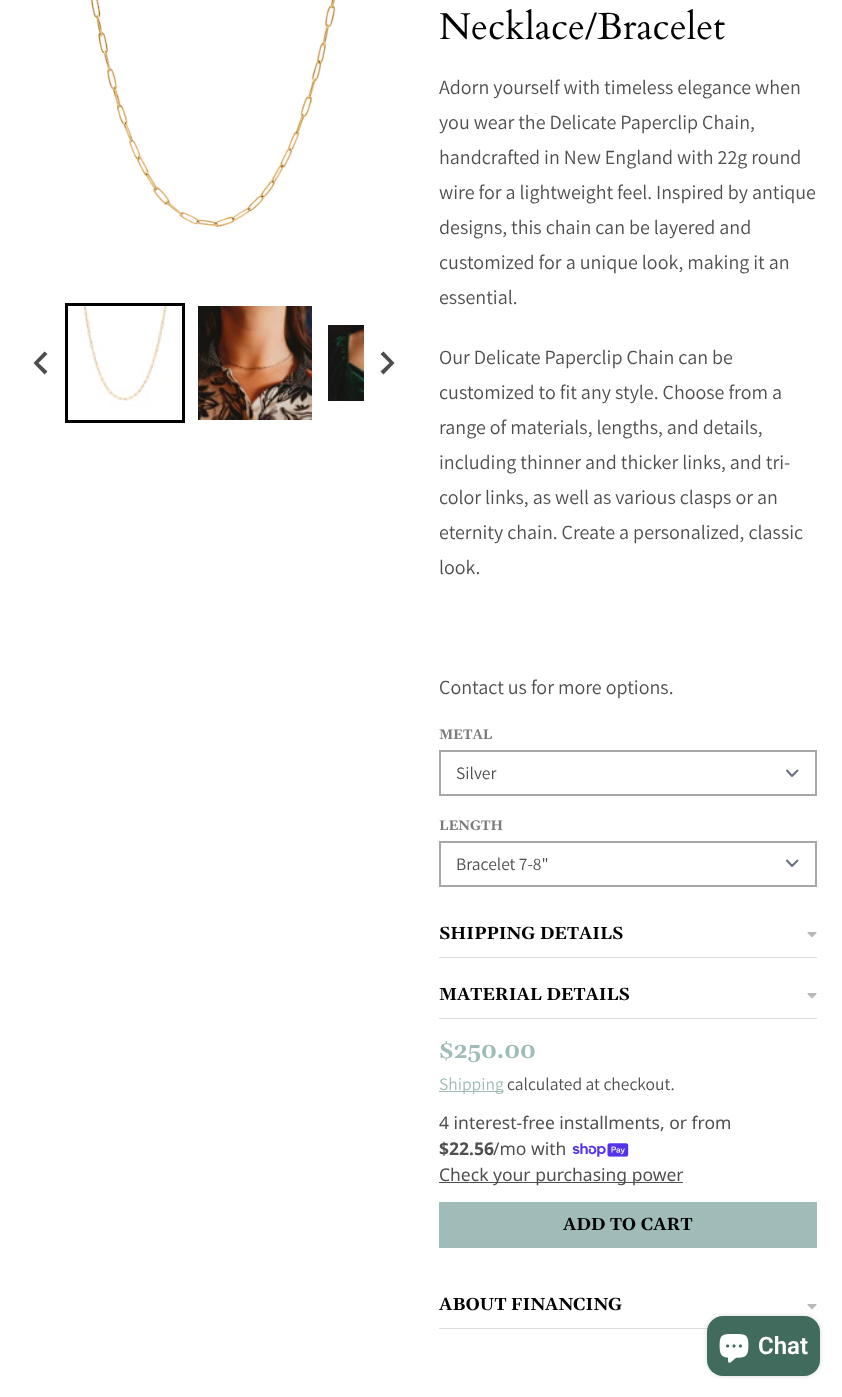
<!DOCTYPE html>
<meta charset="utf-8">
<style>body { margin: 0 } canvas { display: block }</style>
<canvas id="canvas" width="842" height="1397"></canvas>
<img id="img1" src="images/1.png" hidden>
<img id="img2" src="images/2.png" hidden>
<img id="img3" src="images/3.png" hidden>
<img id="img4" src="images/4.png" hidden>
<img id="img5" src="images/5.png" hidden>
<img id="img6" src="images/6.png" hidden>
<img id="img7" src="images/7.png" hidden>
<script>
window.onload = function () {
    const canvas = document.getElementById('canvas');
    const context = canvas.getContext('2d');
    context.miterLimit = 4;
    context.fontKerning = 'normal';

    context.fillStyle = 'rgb(255, 255, 255)';
    context.fillRect(0, 0, 842, 1397);
    context.drawImage(document.getElementById('img1'), 91, 0, 247, 228);
    context.strokeStyle = 'rgb(0, 0, 0)';
    context.lineWidth = 3;
    context.strokeRect(66.5, 304.5, 117, 117);
    context.drawImage(document.getElementById('img2'), 82, 306, 87, 101);
    context.drawImage(document.getElementById('img3'), 198, 306, 114, 114);
    context.drawImage(document.getElementById('img4'), 328, 325, 36, 76);
    context.fillStyle = 'rgb(77, 77, 77)';
    context.beginPath();
    context.moveTo(44.5, 351.5);
    context.lineTo(47.5, 354);
    context.lineTo(38.5, 363);
    context.lineTo(47.5, 371.5);
    context.lineTo(44.5, 374.5);
    context.lineTo(33.5, 363);
    context.closePath();
    context.fill();
    context.beginPath();
    context.moveTo(383.5, 351.5);
    context.lineTo(380.5, 354);
    context.lineTo(389.5, 363);
    context.lineTo(380.5, 371.5);
    context.lineTo(383.5, 374.5);
    context.lineTo(394.5, 363);
    context.closePath();
    context.fill();
    context.beginPath();
    context.moveTo(787, 770.5);
    context.lineTo(792, 776);
    context.lineTo(797.5, 770.5);
    context.strokeStyle = 'rgb(107, 114, 128)';
    context.lineWidth = 2;
    context.lineCap = 'round';
    context.lineJoin = 'round';
    context.stroke();
    context.strokeStyle = 'rgb(167, 167, 167)';
    context.lineJoin = 'miter';
    context.strokeRect(440, 751, 376, 44);
    context.beginPath();
    context.moveTo(787, 860.5);
    context.lineTo(792, 866);
    context.lineTo(797.5, 860.5);
    context.strokeStyle = 'rgb(107, 114, 128)';
    context.lineJoin = 'round';
    context.stroke();
    context.strokeStyle = 'rgb(167, 167, 167)';
    context.lineJoin = 'miter';
    context.strokeRect(440, 842, 376, 44);
    context.fillStyle = 'rgb(220, 220, 220)';
    context.fillRect(439, 957, 378, 1);
    context.drawImage(document.getElementById('img5'), 807, 932, 10, 6);
    context.fillRect(439, 1018, 378, 1);
    context.drawImage(document.getElementById('img5'), 807, 993, 10, 6);
    context.fillStyle = 'rgb(160, 188, 184)';
    context.fillRect(439, 1091, 64, 1);
    context.drawImage(document.getElementById('img6'), 572, 1143, 57, 14);
    context.fillStyle = 'rgb(79, 79, 79)';
    context.fillRect(439, 1182, 244, 1);
    context.fillStyle = 'rgb(160, 188, 184)';
    context.fillRect(439, 1202, 378, 46);
    context.fillStyle = 'rgb(220, 220, 220)';
    context.fillRect(439, 1328, 269, 1);
    context.drawImage(document.getElementById('img5'), 807, 1304, 10, 6);
    context.fillStyle = 'rgba(0, 0, 0, 0.15)';
    context.filter = 'blur(2.5px)';
    context.beginPath();
    context.roundRect(707, 1316, 113, 60, 16);
    context.fill();
    context.filter = 'none';
    context.fillStyle = 'rgb(65, 108, 93)';
    context.beginPath();
    context.roundRect(707, 1316, 113, 60, 16);
    context.fill();
    context.drawImage(document.getElementById('img7'), 719, 1334, 30, 29);
    context.font = '37.5px Cardo';
    context.fillStyle = 'rgb(0, 0, 0)';
    context.fillText('Necklace/Bracelet', 439, 39);
    context.font = '20px Assistant';
    context.fillStyle = 'rgb(79, 79, 79)';
    context.fillText('Adorn yourself with timeless elegance when', 439, 94);
    context.fillText('you wear the Delicate Paperclip Chain,', 439, 129);
    context.fillText('handcrafted in New England with 22g round', 439, 164);
    context.fillText('wire for a lightweight feel. Inspired by antique', 439, 199);
    context.fillText('designs, this chain can be layered and', 439, 234);
    context.fillText('customized for a unique look, making it an', 439, 269);
    context.fillText('essential.', 439, 304);
    context.fillText('Our Delicate Paperclip Chain can be', 439, 364);
    context.fillText('customized to fit any style. Choose from a', 439, 399);
    context.fillText('range of materials, lengths, and details,', 439, 434);
    context.fillText('including thinner and thicker links, and tri-', 439, 469);
    context.fillText('color links, as well as various clasps or an', 439, 504);
    context.fillText('eternity chain. Create a personalized, classic', 439, 539);
    context.fillText('look.', 439, 574);
    context.fillText('Contact us for more options.', 439, 694);
    context.font = 'bold 13.75px Gelasio';
    context.fillStyle = 'rgb(123, 123, 123)';
    context.fillText('METAL', 439, 739);
    context.font = '17.5px Assistant';
    context.fillStyle = 'rgb(79, 79, 79)';
    context.fillText('Silver', 456, 779);
    context.font = 'bold 13.75px Gelasio';
    context.fillStyle = 'rgb(123, 123, 123)';
    context.fillText('LENGTH', 439, 830);
    context.font = '17.5px Assistant';
    context.fillStyle = 'rgb(79, 79, 79)';
    context.fillText('Bracelet 7-8"', 456, 870);
    context.font = 'bold 17.5px Gelasio';
    context.fillStyle = 'rgb(0, 0, 0)';
    context.fillText('SHIPPING DETAILS', 439, 939);
    context.fillText('MATERIAL DETAILS', 439, 1000);
    context.font = 'bold 22.5px Gelasio';
    context.fillStyle = 'rgb(160, 188, 184)';
    context.fillText('$250.00', 439, 1058);
    context.font = '17.5px Assistant';
    context.fillText('Shipping', 439, 1090);
    context.fillStyle = 'rgb(79, 79, 79)';
    context.fillText('calculated at checkout.', 507, 1090);
    context.font = '17.5px Noto Sans';
    context.fillText('4 interest-free installments, or from', 439, 1129);
    context.font = 'bold 17.5px Noto Sans';
    context.fillText('$22.56', 439, 1155);
    context.font = '17.5px Noto Sans';
    context.fillText('/mo with', 493, 1155);
    context.fillText('Check your purchasing power', 439, 1181);
    context.font = 'bold 17.5px Gelasio';
    context.fillStyle = 'rgb(0, 0, 0)';
    context.fillText('ADD TO CART', 563, 1230);
    context.fillText('ABOUT FINANCING', 439, 1310);
    context.font = '600 24px Roboto';
    context.fillStyle = 'rgb(255, 255, 255)';
    context.fillText('Chat', 758, 1354);
};
</script>
